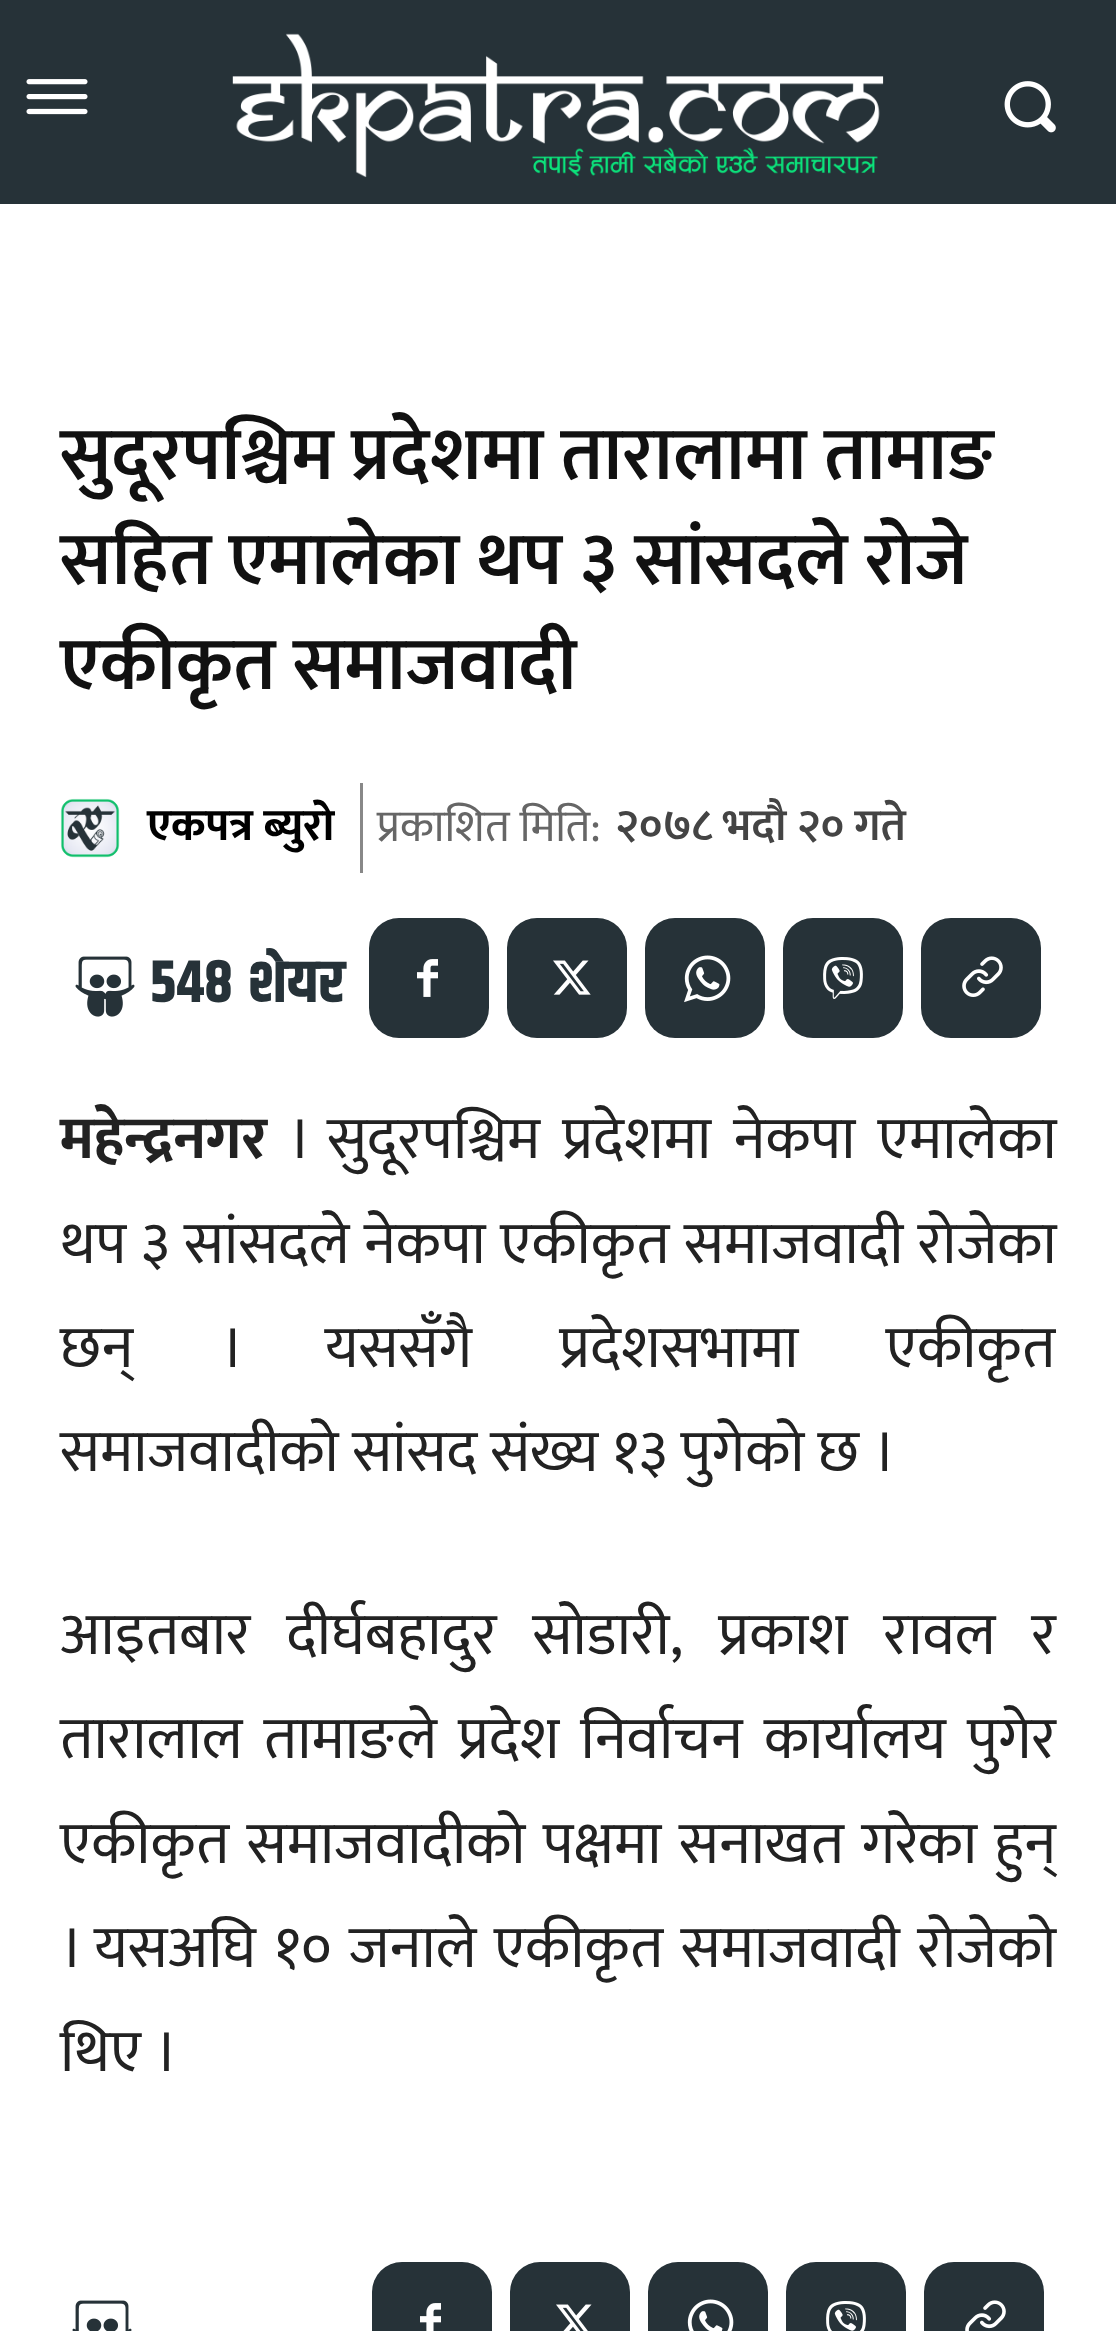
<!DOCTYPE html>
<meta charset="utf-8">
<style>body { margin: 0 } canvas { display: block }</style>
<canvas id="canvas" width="1116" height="2331"></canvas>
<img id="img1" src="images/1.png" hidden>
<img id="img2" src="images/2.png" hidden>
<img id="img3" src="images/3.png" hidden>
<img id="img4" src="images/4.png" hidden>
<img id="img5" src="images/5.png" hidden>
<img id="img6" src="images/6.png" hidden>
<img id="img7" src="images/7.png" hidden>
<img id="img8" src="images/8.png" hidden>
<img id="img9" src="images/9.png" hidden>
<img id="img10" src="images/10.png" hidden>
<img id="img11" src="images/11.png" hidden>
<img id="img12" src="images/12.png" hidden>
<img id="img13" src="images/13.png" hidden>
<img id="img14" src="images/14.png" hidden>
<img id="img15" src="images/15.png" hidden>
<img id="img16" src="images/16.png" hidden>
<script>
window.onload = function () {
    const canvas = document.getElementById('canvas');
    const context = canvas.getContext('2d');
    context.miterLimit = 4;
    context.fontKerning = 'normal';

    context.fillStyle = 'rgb(255, 255, 255)';
    context.fillRect(0, 0, 1116, 2331);
    context.fillStyle = 'rgb(38, 50, 56)';
    context.fillRect(0, 0, 1116, 204);
    context.drawImage(document.getElementById('img1'), 26, 79, 62, 36);
    context.drawImage(document.getElementById('img2'), 232, 33, 652, 145);
    context.drawImage(document.getElementById('img3'), 1004, 81, 52, 52);
    context.fillStyle = 'rgb(136, 136, 136)';
    context.fillRect(360, 783, 3, 90);
    context.drawImage(document.getElementById('img4'), 60, 798, 60, 60);
    context.drawImage(document.getElementById('img5'), 75, 956, 60, 61);
    context.fillStyle = 'rgb(38, 50, 56)';
    context.beginPath();
    context.roundRect(369, 918, 120, 120, 30);
    context.fill();
    context.drawImage(document.getElementById('img6'), 417, 959, 21, 38);
    context.beginPath();
    context.roundRect(507, 918, 120, 120, 30);
    context.fill();
    context.drawImage(document.getElementById('img7'), 553, 960, 38, 35);
    context.beginPath();
    context.roundRect(645, 918, 120, 120, 30);
    context.fill();
    context.drawImage(document.getElementById('img8'), 684, 955, 47, 48);
    context.beginPath();
    context.roundRect(783, 918, 120, 120, 30);
    context.fill();
    context.drawImage(document.getElementById('img9'), 823, 957, 40, 42);
    context.beginPath();
    context.roundRect(921, 918, 120, 120, 30);
    context.fill();
    context.drawImage(document.getElementById('img10'), 962, 956, 41, 41);
    context.drawImage(document.getElementById('img11'), 72, 2300, 60, 31);
    context.beginPath();
    context.roundRect(372, 2262, 120, 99, 30);
    context.fill();
    context.drawImage(document.getElementById('img12'), 420, 2303, 21, 28);
    context.beginPath();
    context.roundRect(510, 2262, 120, 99, 30);
    context.fill();
    context.drawImage(document.getElementById('img13'), 556, 2304, 36, 27);
    context.beginPath();
    context.roundRect(648, 2262, 120, 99, 30);
    context.fill();
    context.drawImage(document.getElementById('img14'), 687, 2299, 47, 32);
    context.beginPath();
    context.roundRect(786, 2262, 120, 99, 30);
    context.fill();
    context.drawImage(document.getElementById('img15'), 826, 2301, 40, 30);
    context.beginPath();
    context.roundRect(924, 2262, 120, 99, 30);
    context.fill();
    context.drawImage(document.getElementById('img16'), 965, 2300, 41, 31);
    context.font = '600 75px Ek Mukta';
    context.fillStyle = 'rgb(17, 17, 17)';
    context.fillText('सुदूरपश्चिम प्रदेशमा तारालामा तामाङ', 60, 479);
    context.fillText('सहित एमालेका थप ३ सांसदले रोजे', 60, 584);
    context.fillText('एकीकृत समाजवादी', 60, 689);
    context.font = 'bold 45px Ek Mukta';
    context.fillStyle = 'rgb(0, 0, 0)';
    context.fillText('एकपत्र ब्युरो', 147, 840);
    context.font = '45px Ek Mukta';
    context.fillStyle = 'rgb(102, 102, 102)';
    context.fillText('प्रकाशित मिति:', 377, 841);
    context.font = '600 45px Ek Mukta';
    context.fillStyle = 'rgb(68, 68, 68)';
    context.fillText('२०७८ भदौ २० गते', 615, 840);
    context.font = 'bold 60px Khand';
    context.fillStyle = 'rgb(38, 50, 56)';
    context.fillText('548', 150, 1002);
    context.fillText('शेयर', 248, 1002);
    context.font = 'bold 60px Ek Mukta';
    context.fillStyle = 'rgb(34, 34, 34)';
    context.fillText('महेन्द्रनगर', 60, 1158);
    context.wordSpacing = '9px';
    context.font = '60px Ek Mukta';
    context.fillText('। सुदूरपश्चिम प्रदेशमा नेकपा एमालेका', 288, 1158);
    context.wordSpacing = '1px';
    context.fillText('थप ३ सांसदले नेकपा एकीकृत समाजवादी रोजेका', 60, 1263);
    context.wordSpacing = '74px';
    context.fillText('छन् । यससँगै प्रदेशसभामा एकीकृत', 60, 1367);
    context.wordSpacing = '0px';
    context.fillText('समाजवादीको सांसद संख्य १३ पुगेको छ ।', 60, 1471);
    context.wordSpacing = '22.5px';
    context.fillText('आइतबार दीर्घबहादुर सोडारी, प्रकाश रावल र', 60, 1654);
    context.wordSpacing = '7.75px';
    context.fillText('तारालाल तामाङले प्रदेश निर्वाचन कार्यालय पुगेर', 60, 1758);
    context.wordSpacing = '4px';
    context.fillText('एकीकृत समाजवादीको पक्षमा सनाखत गरेका हुन्', 60, 1863);
    context.fillText('। यसअघि १० जनाले एकीकृत समाजवादी रोजेको', 60, 1967);
    context.wordSpacing = '0px';
    context.fillText('थिए ।', 60, 2071);
};
</script>
